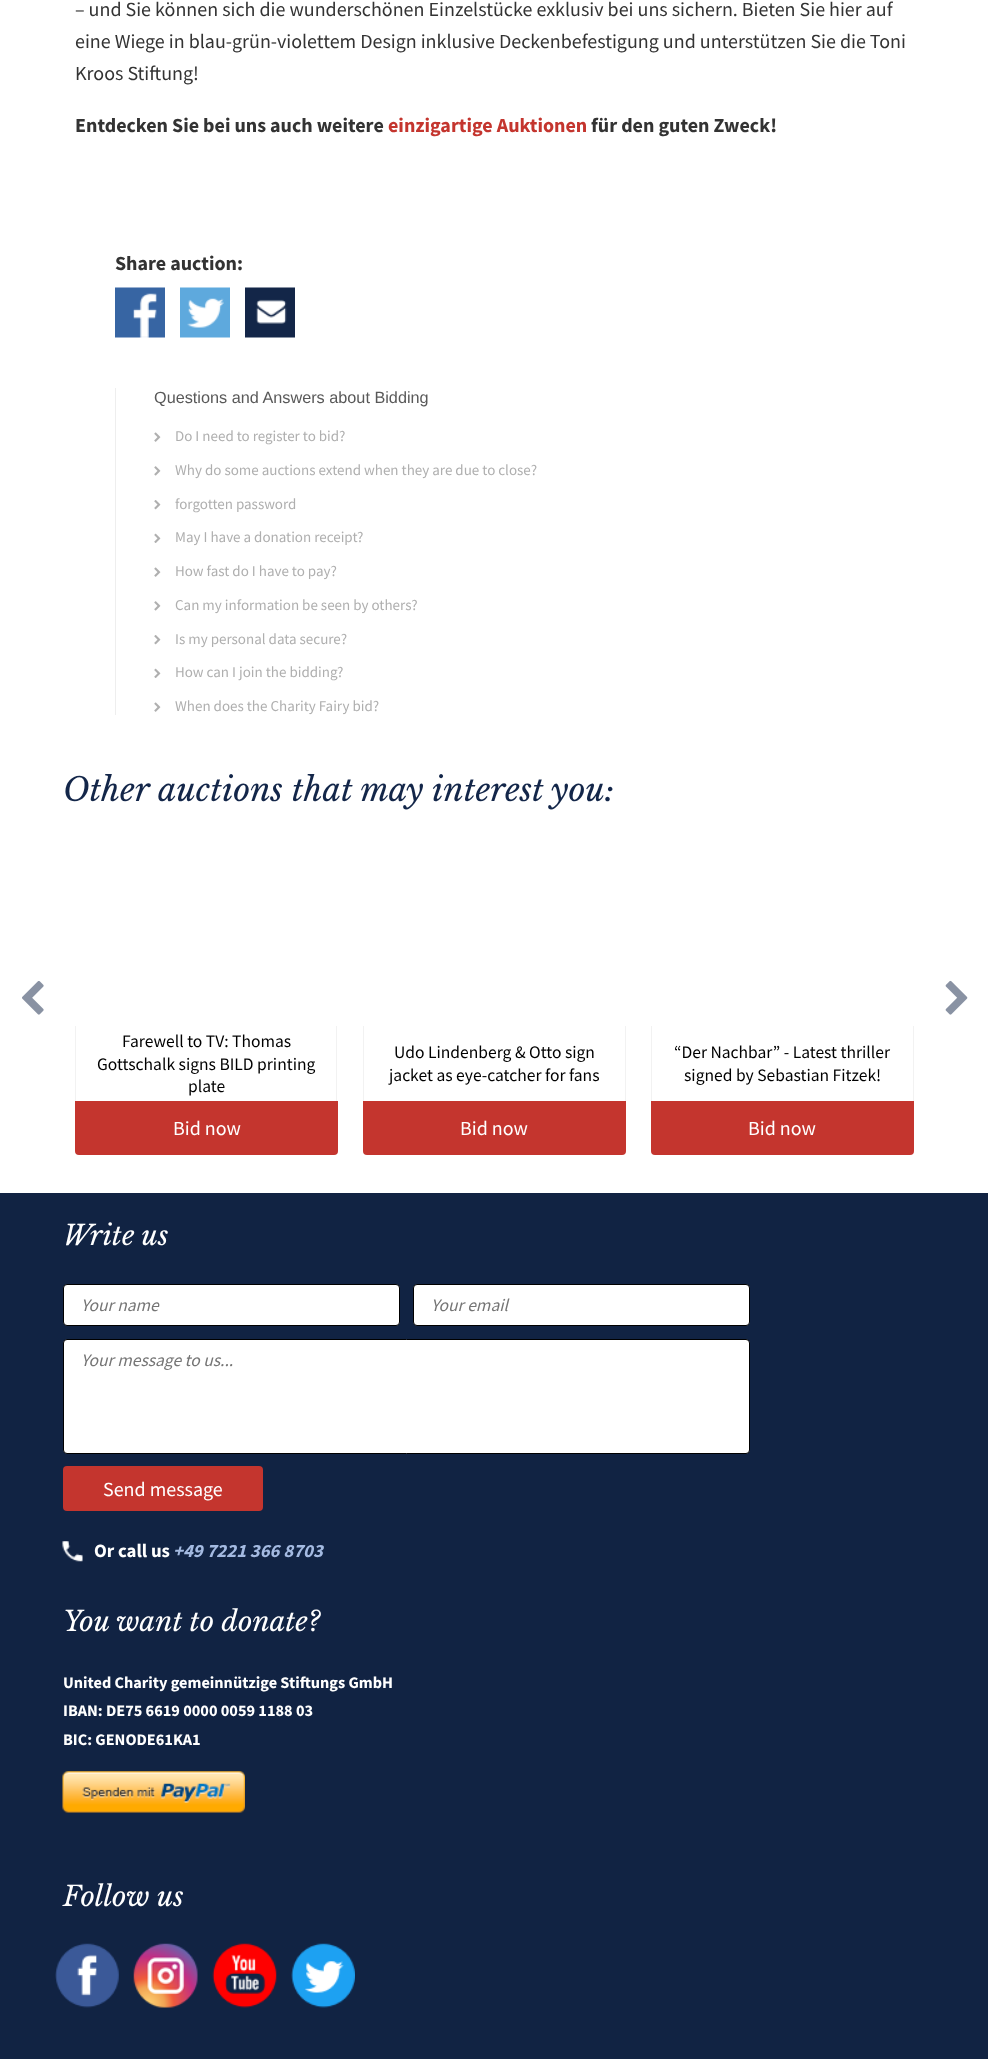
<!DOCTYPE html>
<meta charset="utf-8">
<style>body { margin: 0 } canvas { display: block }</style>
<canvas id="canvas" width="988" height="2059"></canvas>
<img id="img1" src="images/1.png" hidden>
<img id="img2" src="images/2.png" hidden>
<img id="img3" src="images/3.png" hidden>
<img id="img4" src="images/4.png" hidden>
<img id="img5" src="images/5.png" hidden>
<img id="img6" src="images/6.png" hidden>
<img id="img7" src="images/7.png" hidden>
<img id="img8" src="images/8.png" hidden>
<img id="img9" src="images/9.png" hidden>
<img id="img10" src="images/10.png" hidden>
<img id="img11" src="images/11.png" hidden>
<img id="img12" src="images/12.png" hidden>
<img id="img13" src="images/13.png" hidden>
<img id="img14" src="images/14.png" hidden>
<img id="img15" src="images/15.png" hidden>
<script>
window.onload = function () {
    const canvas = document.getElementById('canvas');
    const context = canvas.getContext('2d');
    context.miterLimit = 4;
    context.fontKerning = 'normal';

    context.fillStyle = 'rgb(255, 255, 255)';
    context.fillRect(0, 0, 988, 2059);
    context.drawImage(document.getElementById('img1'), 115, 287, 50, 51);
    context.drawImage(document.getElementById('img2'), 180, 287, 50, 51);
    context.drawImage(document.getElementById('img3'), 245, 287, 50, 51);
    context.fillStyle = 'rgb(238, 238, 238)';
    context.fillRect(115, 388, 1, 327);
    context.drawImage(document.getElementById('img4'), 154, 432, 7, 10);
    context.drawImage(document.getElementById('img5'), 154, 466, 7, 10);
    context.drawImage(document.getElementById('img6'), 154, 500, 7, 10);
    context.drawImage(document.getElementById('img7'), 154, 533, 7, 10);
    context.drawImage(document.getElementById('img4'), 154, 567, 7, 10);
    context.drawImage(document.getElementById('img5'), 154, 601, 7, 10);
    context.drawImage(document.getElementById('img6'), 154, 635, 7, 10);
    context.drawImage(document.getElementById('img7'), 154, 668, 7, 10);
    context.drawImage(document.getElementById('img4'), 154, 702, 7, 10);
    context.drawImage(document.getElementById('img8'), 22, 981, 22, 34);
    context.drawImage(document.getElementById('img9'), 945, 980, 23, 35);
    context.fillStyle = 'rgb(242, 242, 242)';
    context.fillRect(336, 1026, 1, 75);
    context.fillRect(75, 1026, 1, 75);
    context.fillStyle = 'rgb(196, 53, 46)';
    context.beginPath();
    context.roundRect(75, 1101, 263, 54, [0, 0, 4, 4]);
    context.fill();
    context.fillStyle = 'rgb(242, 242, 242)';
    context.fillRect(625, 1026, 1, 75);
    context.fillRect(363, 1026, 1, 75);
    context.fillStyle = 'rgb(196, 53, 46)';
    context.beginPath();
    context.roundRect(363, 1101, 263, 54, [0, 0, 4, 4]);
    context.fill();
    context.fillStyle = 'rgb(242, 242, 242)';
    context.fillRect(913, 1026, 1, 75);
    context.fillRect(651, 1026, 1, 75);
    context.fillStyle = 'rgb(196, 53, 46)';
    context.beginPath();
    context.roundRect(651, 1101, 263, 54, [0, 0, 4, 4]);
    context.fill();
    context.fillStyle = 'rgb(17, 35, 67)';
    context.fillRect(0, 1193, 988, 866);
    context.fillStyle = 'rgb(255, 255, 255)';
    context.beginPath();
    context.roundRect(63.5, 1284.5, 336, 41, 3.5);
    context.fill();
    context.strokeStyle = 'rgb(0, 0, 0)';
    context.stroke();
    context.beginPath();
    context.roundRect(413.5, 1284.5, 336, 41, 3.5);
    context.fill();
    context.stroke();
    context.beginPath();
    context.roundRect(63.5, 1339.5, 686, 114, 3.5);
    context.fill();
    context.stroke();
    context.fillStyle = 'rgb(196, 53, 46)';
    context.beginPath();
    context.roundRect(63, 1466, 200, 45, 4);
    context.fill();
    context.drawImage(document.getElementById('img10'), 62, 1541, 21, 21);
    context.drawImage(document.getElementById('img11'), 62, 1771, 183, 42);
    context.drawImage(document.getElementById('img12'), 55, 1943, 64, 65);
    context.drawImage(document.getElementById('img13'), 133, 1943, 65, 65);
    context.drawImage(document.getElementById('img14'), 212, 1943, 65, 65);
    context.drawImage(document.getElementById('img15'), 291, 1943, 64, 65);
    context.font = '20px Source Sans Pro';
    context.fillStyle = 'rgb(51, 51, 51)';
    context.fillText('– und Sie können sich die wunderschönen Einzelstücke exklusiv bei uns sichern. Bieten Sie hier auf', 75, 16);
    context.fillText('eine Wiege in blau-grün-violettem Design inklusive Deckenbefestigung und unterstützen Sie die Toni', 75, 48);
    context.fillText('Kroos Stiftung!', 75, 80);
    context.font = 'bold 20px Source Sans Pro';
    context.fillText('Entdecken Sie bei uns auch weitere', 75, 132);
    context.fillStyle = 'rgb(196, 53, 46)';
    context.fillText('einzigartige Auktionen', 388, 132);
    context.fillStyle = 'rgb(51, 51, 51)';
    context.fillText('für den guten Zweck!', 591, 132);
    context.fillText('Share auction:', 115, 270);
    context.font = '16.25px Liberation Sans';
    context.fillStyle = 'rgb(89, 89, 89)';
    context.fillText('Questions and Answers about Bidding', 154, 403);
    context.font = '15px Source Sans Pro';
    context.fillStyle = 'rgb(175, 175, 175)';
    context.fillText('Do I need to register to bid?', 175, 441);
    context.fillText('Why do some auctions extend when they are due to close?', 175, 475);
    context.fillText('forgotten password', 175, 509);
    context.fillText('May I have a donation receipt?', 175, 542);
    context.fillText('How fast do I have to pay?', 175, 576);
    context.fillText('Can my information be seen by others?', 175, 610);
    context.fillText('Is my personal data secure?', 175, 644);
    context.fillText('How can I join the bidding?', 175, 677);
    context.fillText('When does the Charity Fairy bid?', 175, 711);
    context.font = 'italic 32.5px Libre Baskerville';
    context.fillStyle = 'rgb(19, 38, 73)';
    context.fillText('Other auctions that may interest you:', 63, 801);
    context.font = '17.5px Source Sans Pro';
    context.fillStyle = 'rgb(0, 0, 0)';
    context.fillText('Farewell to TV: Thomas', 122, 1047);
    context.fillText('Gottschalk signs BILD printing', 97, 1070);
    context.fillText('plate', 188, 1092);
    context.font = '20px Source Sans Pro';
    context.fillStyle = 'rgb(255, 255, 255)';
    context.fillText('Bid now', 173, 1135);
    context.font = '17.5px Source Sans Pro';
    context.fillStyle = 'rgb(0, 0, 0)';
    context.fillText('Udo Lindenberg & Otto sign', 394, 1058);
    context.fillText('jacket as eye-catcher for fans', 389, 1081);
    context.font = '20px Source Sans Pro';
    context.fillStyle = 'rgb(255, 255, 255)';
    context.fillText('Bid now', 460, 1135);
    context.font = '17.5px Source Sans Pro';
    context.fillStyle = 'rgb(0, 0, 0)';
    context.fillText('“Der Nachbar” - Latest thriller', 674, 1058);
    context.fillText('signed by Sebastian Fitzek!', 684, 1081);
    context.font = '20px Source Sans Pro';
    context.fillStyle = 'rgb(255, 255, 255)';
    context.fillText('Bid now', 748, 1135);
    context.font = 'italic 27.5px Libre Baskerville';
    context.fillText('Write us', 63, 1245);
    context.font = 'italic 17.5px Source Sans Pro';
    context.fillStyle = 'rgb(117, 117, 117)';
    context.fillText('Your name', 81, 1311);
    context.fillText('Your email', 431, 1311);
    context.fillText('Your message to us...', 81, 1366);
    context.font = '20px Source Sans Pro';
    context.fillStyle = 'rgb(255, 255, 255)';
    context.fillText('Send message', 103, 1496);
    context.font = 'bold 18.75px Source Sans Pro';
    context.fillText('Or call us', 94, 1557);
    context.font = 'italic bold 18.75px Source Sans Pro';
    context.fillStyle = 'rgb(164, 186, 225)';
    context.fillText('+49 7221 366 8703', 173, 1557);
    context.font = 'italic 27.5px Libre Baskerville';
    context.fillStyle = 'rgb(255, 255, 255)';
    context.fillText('You want to donate?', 63, 1631);
    context.font = 'bold 16.25px Source Sans Pro';
    context.fillText('United Charity gemeinnützige Stiftungs GmbH', 63, 1688);
    context.fillText('IBAN: DE75 6619 0000 0059 1188 03', 63, 1716);
    context.fillText('BIC: GENODE61KA1', 63, 1745);
    context.font = 'italic 27.5px Libre Baskerville';
    context.fillText('Follow us', 63, 1906);
};
</script>
